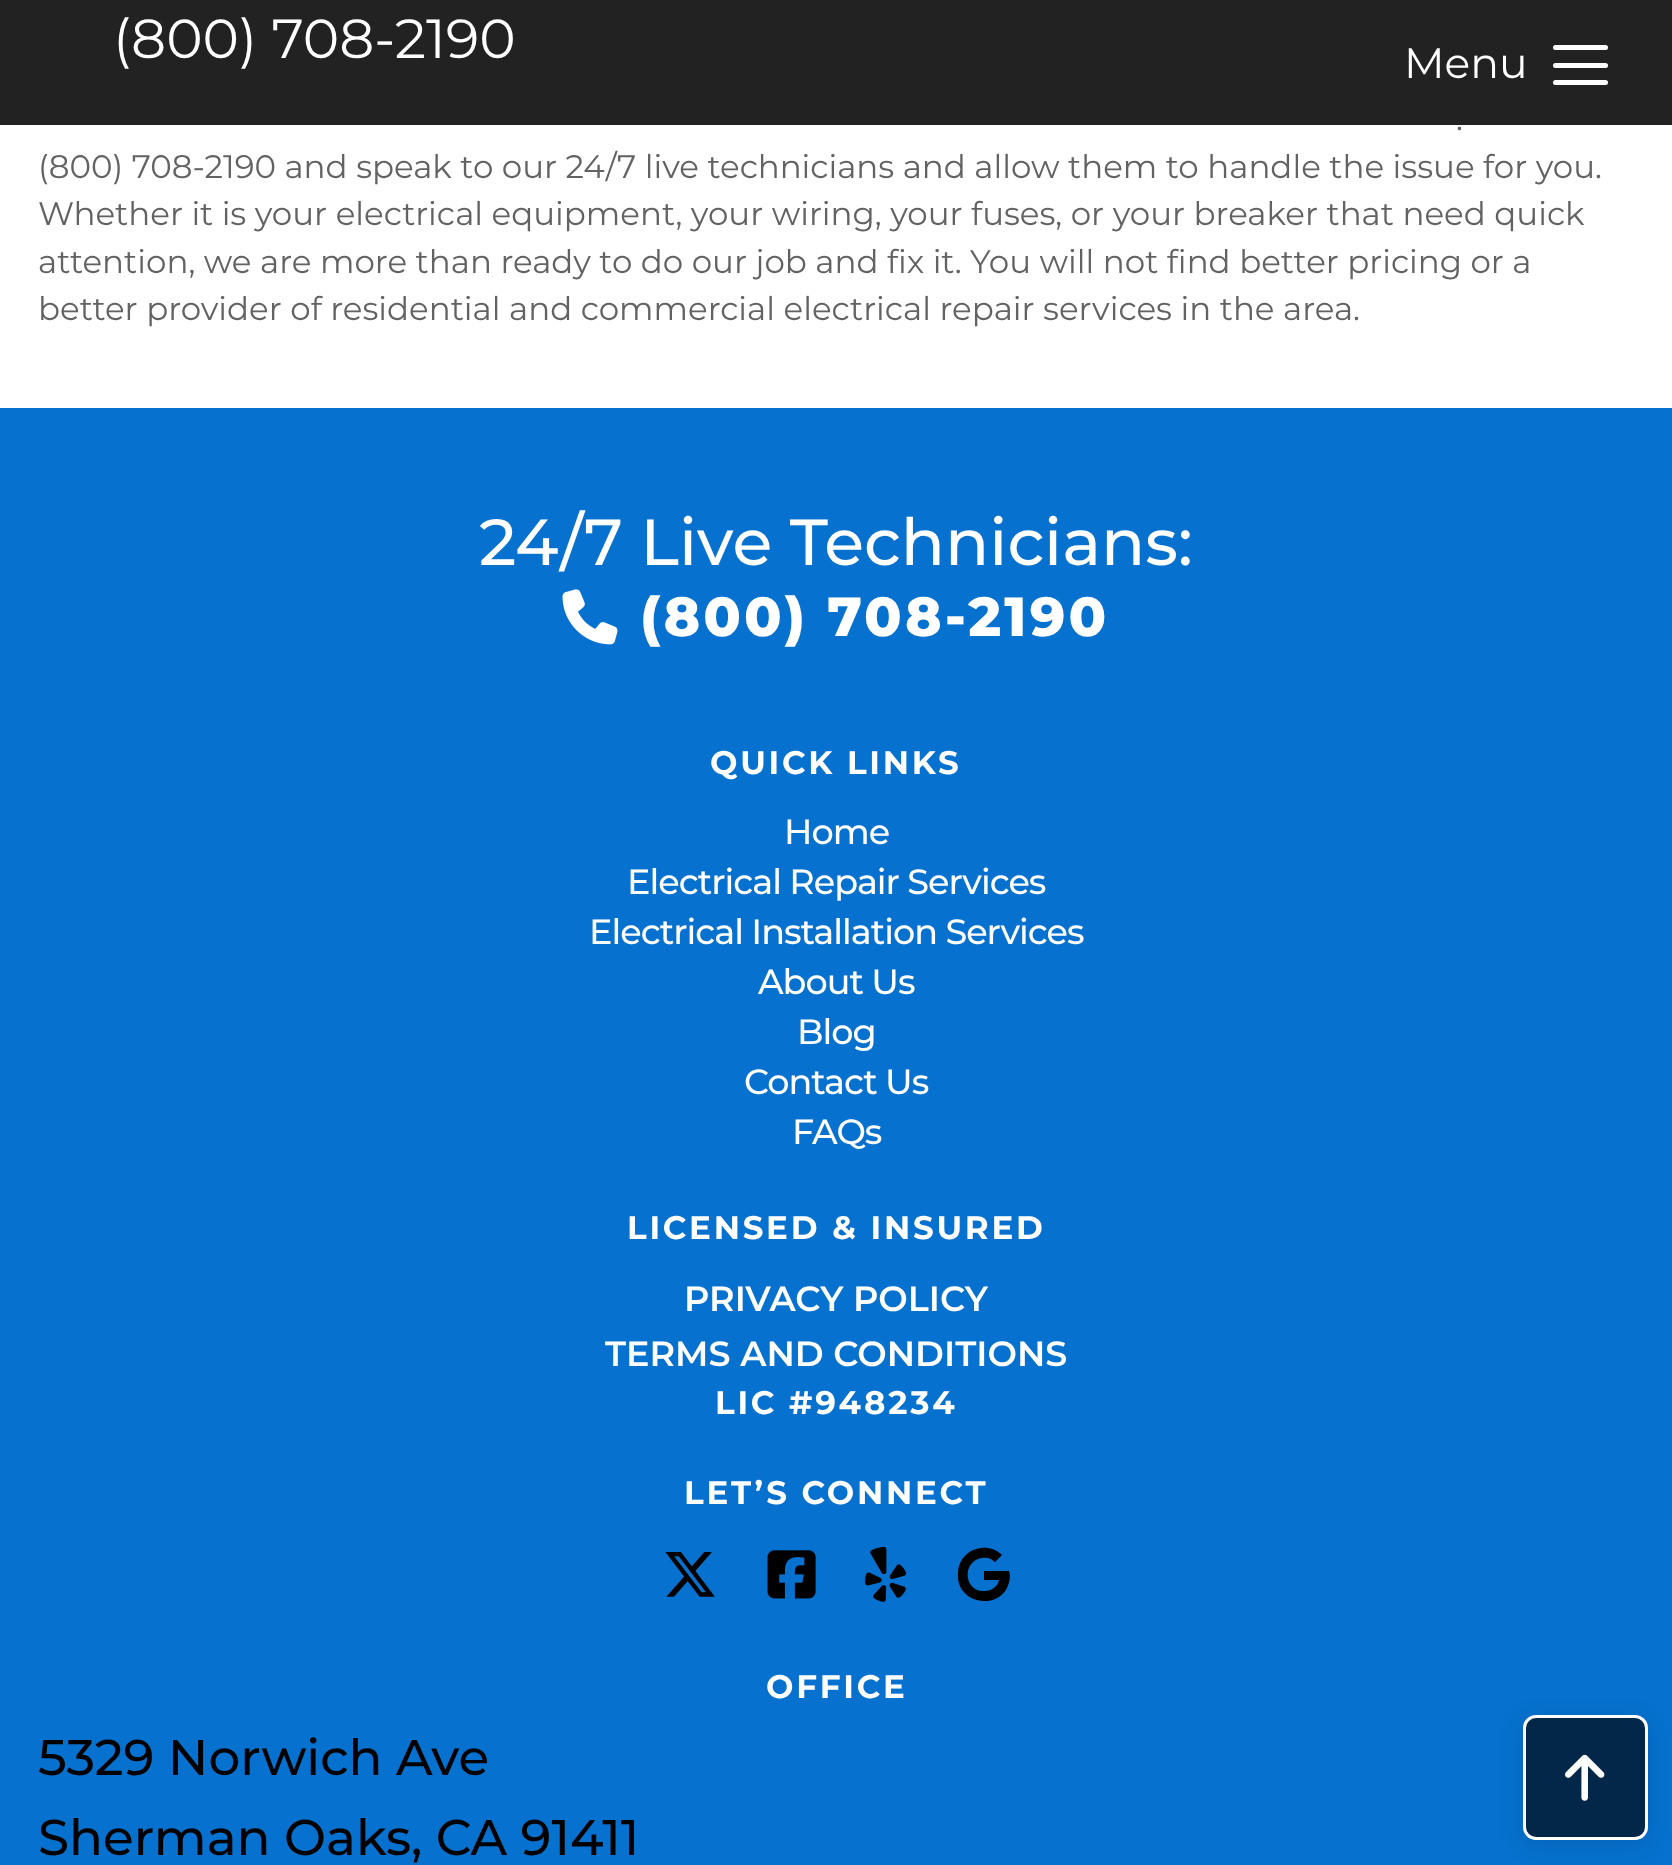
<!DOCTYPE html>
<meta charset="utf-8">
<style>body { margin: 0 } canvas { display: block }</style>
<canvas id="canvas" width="1672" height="1865"></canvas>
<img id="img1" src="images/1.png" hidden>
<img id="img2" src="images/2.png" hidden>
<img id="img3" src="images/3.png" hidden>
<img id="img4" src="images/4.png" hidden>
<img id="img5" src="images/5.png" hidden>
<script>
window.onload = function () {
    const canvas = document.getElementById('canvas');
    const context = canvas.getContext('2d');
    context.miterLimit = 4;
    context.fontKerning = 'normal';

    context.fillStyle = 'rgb(255, 255, 255)';
    context.fillRect(0, 0, 1672, 1865);
    context.fillStyle = 'rgb(34, 34, 34)';
    context.fillRect(0, 0, 1672, 125);
    context.fillStyle = 'rgb(255, 255, 255)';
    context.beginPath();
    context.roundRect(1553, 45, 55, 5, 2.5);
    context.fill();
    context.beginPath();
    context.roundRect(1553, 63, 55, 5, 2.5);
    context.fill();
    context.beginPath();
    context.roundRect(1553, 80, 55, 5, 2.5);
    context.fill();
    context.fillStyle = 'rgb(6, 113, 206)';
    context.fillRect(0, 408, 1672, 1457);
    context.drawImage(document.getElementById('img1'), 562, 589, 56, 56);
    context.drawImage(document.getElementById('img2'), 665, 1552, 50, 45);
    context.drawImage(document.getElementById('img3'), 767, 1550, 49, 49);
    context.drawImage(document.getElementById('img4'), 865, 1546, 42, 56);
    context.fillStyle = 'rgb(0, 0, 0)';
    context.beginPath();
    context.moveTo(1010, 1575);
    context.bezierCurveTo(1009, 1613, 955, 1607, 958, 1573);
    context.bezierCurveTo(958, 1566, 961, 1559, 967, 1554);
    context.bezierCurveTo(976, 1546, 992, 1545, 1002, 1555);
    context.lineTo(995, 1562);
    context.bezierCurveTo(991, 1558, 987, 1557, 982, 1558);
    context.bezierCurveTo(961, 1561, 964, 1593, 985, 1591);
    context.bezierCurveTo(992, 1591, 998, 1586, 999, 1580);
    context.lineTo(984, 1580);
    context.lineTo(984, 1571);
    context.lineTo(1009, 1571);
    context.closePath();
    context.fill();
    context.save();
    context.beginPath();
    context.moveTo(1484, 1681);
    context.lineTo(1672, 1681);
    context.lineTo(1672, 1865);
    context.lineTo(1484, 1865);
    context.closePath();
    context.moveTo(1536, 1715);
    context.lineTo(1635, 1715);
    context.bezierCurveTo(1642, 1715, 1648, 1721, 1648, 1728);
    context.lineTo(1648, 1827);
    context.bezierCurveTo(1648, 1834, 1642, 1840, 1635, 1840);
    context.lineTo(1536, 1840);
    context.bezierCurveTo(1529, 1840, 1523, 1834, 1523, 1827);
    context.lineTo(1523, 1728);
    context.bezierCurveTo(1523, 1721, 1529, 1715, 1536, 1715);
    context.closePath();
    context.clip('evenodd');
    context.fillStyle = 'rgba(0, 0, 0, 0.1)';
    context.filter = 'blur(12.5px)';
    context.beginPath();
    context.roundRect(1523, 1720, 125, 125, 13);
    context.fill();
    context.filter = 'none';
    context.restore();
    context.fillStyle = 'rgba(0, 0, 0, 0.65)';
    context.beginPath();
    context.roundRect(1524.5, 1716.5, 122, 122, 11.5);
    context.fill();
    context.strokeStyle = 'rgb(255, 255, 255)';
    context.lineWidth = 3;
    context.stroke();
    context.drawImage(document.getElementById('img5'), 1565, 1754, 40, 47);
    context.font = '55px Montserrat';
    context.fillStyle = 'rgb(255, 255, 255)';
    context.fillText('(800) 708-2190', 113, 58);
    context.font = '42.5px Montserrat';
    context.fillText('Menu', 1404, 78);
    context.font = '32.5px Montserrat';
    context.fillStyle = 'rgb(98, 98, 98)';
    context.fillText('.', 1456, 130);
    context.fillText('(800) 708-2190 and speak to our 24/7 live technicians and allow them to handle the issue for you.', 38, 178);
    context.fillText('Whether it is your electrical equipment, your wiring, your fuses, or your breaker that need quick', 38, 225);
    context.fillText('attention, we are more than ready to do our job and fix it. You will not find better pricing or a', 38, 273);
    context.fillText('better provider of residential and commercial electrical repair services in the area.', 38, 320);
    context.font = '500 65px Montserrat';
    context.fillStyle = 'rgb(255, 255, 255)';
    context.fillText('24/7 Live Technicians:', 479, 565);
    context.letterSpacing = '3.1px';
    context.font = '800 55px Montserrat';
    context.fillText('(800) 708-2190', 640, 636);
    context.letterSpacing = '2.75px';
    context.font = 'bold 32.5px Montserrat';
    context.fillText('QUICK LINKS', 710, 774);
    context.letterSpacing = '-1px';
    context.font = '500 35px Montserrat';
    context.fillText('Home', 784, 844);
    context.fillText('Electrical Repair Services', 627, 894);
    context.fillText('Electrical Installation Services', 589, 944);
    context.fillText('About Us', 758, 994);
    context.fillText('Blog', 797, 1044);
    context.fillText('Contact Us', 744, 1094);
    context.fillText('FAQs', 792, 1144);
    context.letterSpacing = '2.75px';
    context.font = 'bold 32.5px Montserrat';
    context.fillText('LICENSED & INSURED', 627, 1239);
    context.letterSpacing = '0px';
    context.font = '600 35px Montserrat';
    context.fillText('PRIVACY POLICY', 684, 1311);
    context.fillText('TERMS AND CONDITIONS', 605, 1366);
    context.letterSpacing = '2.75px';
    context.font = 'bold 32.5px Montserrat';
    context.fillText('LIC #948234', 715, 1414);
    context.fillText('LET’S CONNECT', 684, 1504);
    context.fillText('OFFICE', 766, 1698);
    context.letterSpacing = '0px';
    context.font = '500 50px Montserrat';
    context.fillStyle = 'rgb(0, 0, 0)';
    context.fillText('5329 Norwich Ave', 38, 1775);
    context.fillText('Sherman Oaks, CA 91411', 38, 1855);
};
</script>
